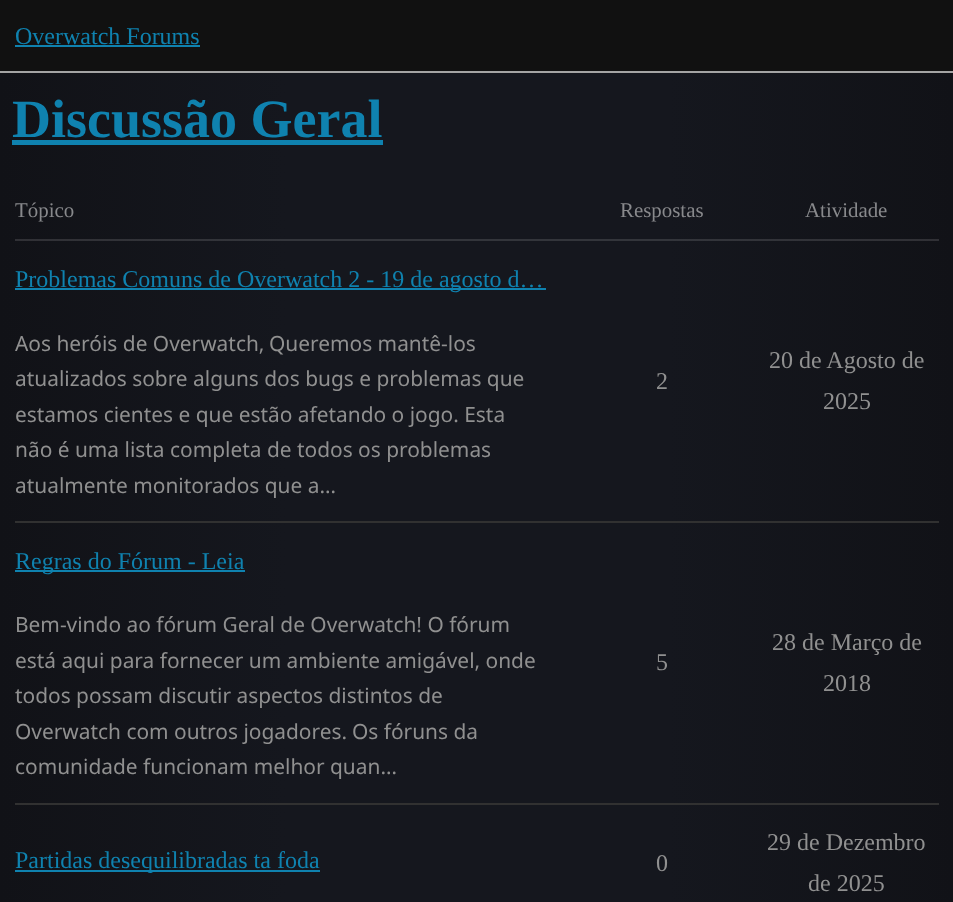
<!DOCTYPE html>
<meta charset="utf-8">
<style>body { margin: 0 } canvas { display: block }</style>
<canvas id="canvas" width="953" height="902"></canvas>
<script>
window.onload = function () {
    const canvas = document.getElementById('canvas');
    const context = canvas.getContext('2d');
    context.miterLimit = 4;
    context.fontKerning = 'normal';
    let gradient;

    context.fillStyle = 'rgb(255, 255, 255)';
    context.fillRect(0, 0, 953, 902);
    gradient = context.createLinearGradient(0, 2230, 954, 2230);
    gradient.addColorStop(0, 'rgb(17, 18, 23)');
    gradient.addColorStop(0.3, 'rgb(21, 23, 30)');
    gradient.addColorStop(0.7, 'rgb(21, 23, 30)');
    gradient.addColorStop(1, 'rgb(17, 18, 23)');
    context.fillStyle = gradient;
    context.fillRect(0, 73, 953, 829);
    gradient = context.createLinearGradient(0, 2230, 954, 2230);
    gradient.addColorStop(0, 'rgb(48, 48, 53)');
    gradient.addColorStop(0.3, 'rgb(51, 53, 59)');
    gradient.addColorStop(0.7, 'rgb(51, 53, 59)');
    gradient.addColorStop(1, 'rgb(48, 48, 53)');
    context.fillStyle = gradient;
    context.fillRect(15, 239, 924, 2);
    context.fillStyle = 'rgb(17, 17, 17)';
    context.fillRect(0, 0, 953, 71);
    context.fillStyle = 'rgb(164, 164, 164)';
    context.fillRect(0, 71, 953, 2);
    context.fillStyle = 'rgb(15, 130, 175)';
    context.fillRect(15, 45, 185, 2);
    context.fillRect(12, 140, 371, 5);
    context.fillStyle = 'rgb(49, 49, 49)';
    context.fillRect(15, 521, 924, 2);
    context.fillStyle = 'rgb(15, 130, 175)';
    context.fillRect(15, 288, 531, 2);
    context.fillStyle = 'rgb(49, 49, 49)';
    context.fillRect(15, 803, 924, 2);
    context.fillStyle = 'rgb(15, 130, 175)';
    context.fillRect(15, 570, 230, 2);
    context.fillRect(15, 870, 305, 2);
    context.font = '24px Liberation Serif';
    context.fillText('Overwatch Forums', 15, 44);
    context.font = 'bold 54px Liberation Serif';
    context.fillText('Discussão Geral', 12, 137);
    context.font = '20.9px Liberation Serif';
    context.fillStyle = 'rgb(136, 137, 140)';
    context.fillText('Tópico', 15, 217);
    context.fillText('Respostas', 620, 217);
    context.fillText('Atividade', 805, 217);
    context.font = '24px Liberation Serif';
    context.fillStyle = 'rgb(15, 130, 175)';
    context.fillText('Problemas Comuns de Overwatch 2 - 19 de agosto d…', 15, 287);
    context.font = '20.9px Noto Sans';
    context.fillStyle = 'rgb(144, 144, 144)';
    context.fillText('Aos heróis de Overwatch,', 15, 351);
    context.fillText('Queremos mantê-los', 269, 351);
    context.fillText('atualizados sobre alguns dos bugs e problemas que', 15, 386);
    context.fillText('estamos cientes e que estão afetando o jogo. Esta', 15, 422);
    context.fillText('não é uma lista completa de todos os problemas', 15, 457);
    context.fillText('atualmente monitorados que a…', 15, 493);
    context.font = '24px Liberation Serif';
    context.fillText('2', 656, 389);
    context.fillText('20 de Agosto de', 769, 368);
    context.fillText('2025', 823, 409);
    context.fillStyle = 'rgb(15, 130, 175)';
    context.fillText('Regras do Fórum - Leia', 15, 569);
    context.font = '20.9px Noto Sans';
    context.fillStyle = 'rgb(144, 144, 144)';
    context.fillText('Bem-vindo ao fórum Geral de Overwatch! O fórum', 15, 632);
    context.fillText('está aqui para fornecer um ambiente amigável, onde', 15, 668);
    context.fillText('todos possam discutir aspectos distintos de', 15, 703);
    context.fillText('Overwatch com outros jogadores.', 15, 739);
    context.fillText('Os fóruns da', 352, 739);
    context.fillText('comunidade funcionam melhor quan…', 15, 774);
    context.font = '24px Liberation Serif';
    context.fillText('5', 656, 670);
    context.fillText('28 de Março de', 772, 650);
    context.fillText('2018', 823, 691);
    context.fillStyle = 'rgb(15, 130, 175)';
    context.fillText('Partidas desequilibradas ta foda', 15, 868);
    context.fillStyle = 'rgb(144, 144, 144)';
    context.fillText('0', 656, 871);
    context.fillText('29 de Dezembro', 767, 850);
    context.fillText('de 2025', 808, 891);
};
</script>
